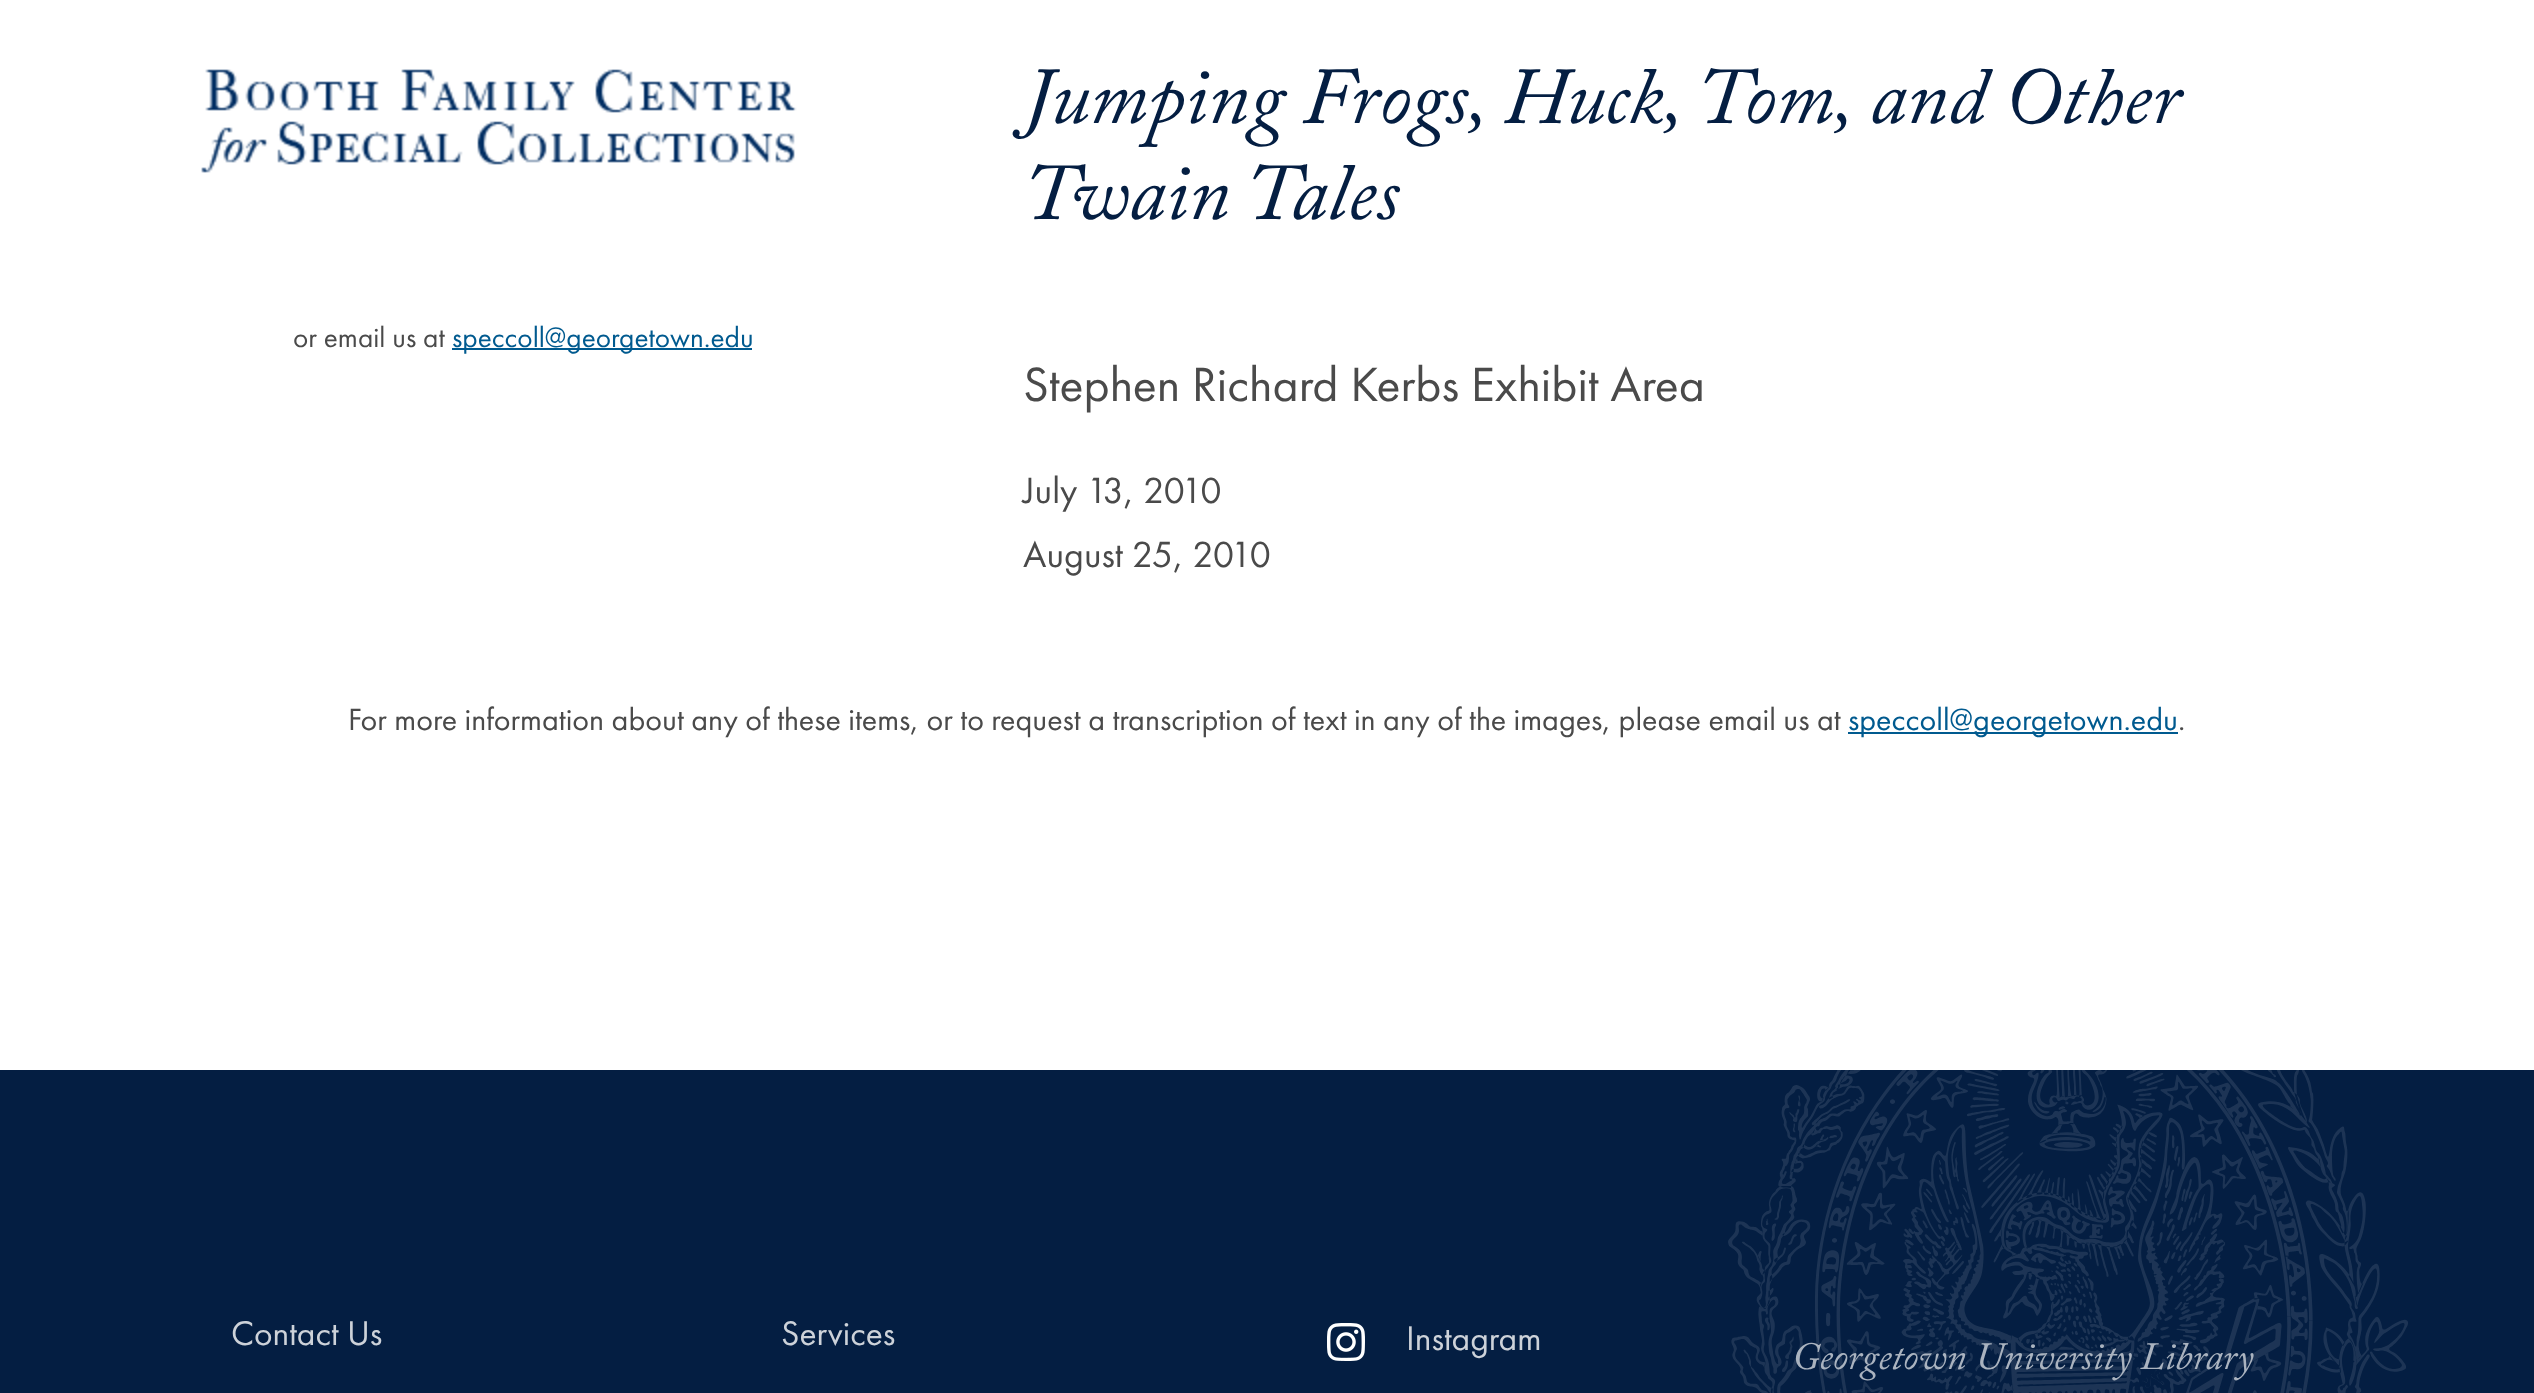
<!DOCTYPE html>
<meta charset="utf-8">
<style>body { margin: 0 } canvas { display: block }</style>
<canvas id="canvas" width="2534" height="1393"></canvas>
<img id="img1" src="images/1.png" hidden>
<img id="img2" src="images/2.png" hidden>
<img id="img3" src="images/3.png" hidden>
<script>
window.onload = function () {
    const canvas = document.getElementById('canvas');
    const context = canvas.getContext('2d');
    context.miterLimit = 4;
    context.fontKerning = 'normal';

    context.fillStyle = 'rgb(255, 255, 255)';
    context.fillRect(0, 0, 2534, 1393);
    context.drawImage(document.getElementById('img1'), 201, 69, 596, 104);
    context.fillStyle = 'rgb(0, 90, 143)';
    context.fillRect(452, 348, 300, 2);
    context.fillRect(1848, 732, 330, 2);
    context.fillStyle = 'rgb(4, 30, 66)';
    context.fillRect(0, 1070, 2534, 323);
    context.drawImage(document.getElementById('img2'), 1728, 1070, 680, 323);
    context.drawImage(document.getElementById('img3'), 1327, 1323, 38, 38);
    context.font = '29.25px Futura PT';
    context.fillStyle = 'rgb(74, 74, 74)';
    context.fillText('or email us at', 293, 347);
    context.fillStyle = 'rgb(0, 90, 143)';
    context.fillText('speccoll@georgetown.edu', 452, 347);
    context.font = 'italic 80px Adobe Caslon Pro';
    context.fillStyle = 'rgb(4, 30, 66)';
    context.fillText('Jumping Frogs, Huck, Tom, and Other', 1023, 123);
    context.fillText('Twain Tales', 1023, 219);
    context.font = '49.9px Futura PT';
    context.fillStyle = 'rgb(74, 74, 74)';
    context.fillText('Stephen Richard Kerbs Exhibit Area', 1023, 401);
    context.font = '37.75px Futura PT';
    context.fillText('July 13, 2010', 1023, 503);
    context.fillText('August 25, 2010', 1023, 567);
    context.font = '32px Futura PT';
    context.fillText('For more information about any of these items, or to request a transcription of text in any of the images, please email us at', 348, 730);
    context.fillStyle = 'rgb(0, 90, 143)';
    context.fillText('speccoll@georgetown.edu', 1848, 730);
    context.fillStyle = 'rgb(74, 74, 74)';
    context.fillText('.', 2178, 730);
    context.font = '35.5px Futura PT';
    context.fillStyle = 'rgb(205, 210, 217)';
    context.fillText('Contact Us', 231, 1345);
    context.fillText('Services', 781, 1345);
    context.fillText('Instagram', 1406, 1350);
    context.font = 'italic 38.4px Adobe Caslon Pro';
    context.fillStyle = 'rgb(170, 179, 191)';
    context.fillText('Georgetown University Library', 1792, 1369);
};
</script>
